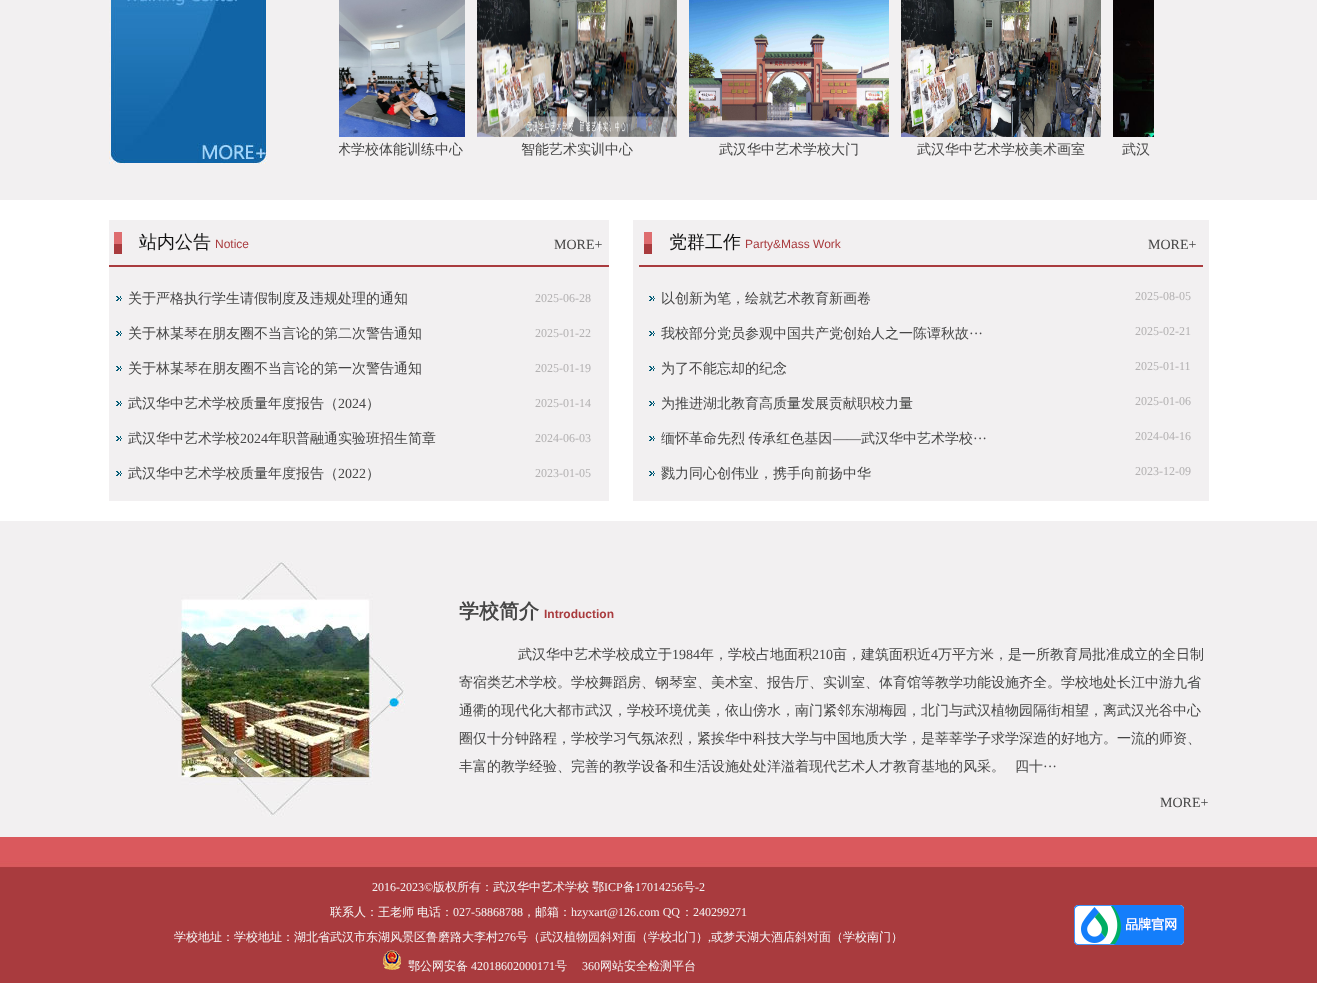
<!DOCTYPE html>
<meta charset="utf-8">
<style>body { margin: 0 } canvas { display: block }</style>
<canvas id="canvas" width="1317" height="983"></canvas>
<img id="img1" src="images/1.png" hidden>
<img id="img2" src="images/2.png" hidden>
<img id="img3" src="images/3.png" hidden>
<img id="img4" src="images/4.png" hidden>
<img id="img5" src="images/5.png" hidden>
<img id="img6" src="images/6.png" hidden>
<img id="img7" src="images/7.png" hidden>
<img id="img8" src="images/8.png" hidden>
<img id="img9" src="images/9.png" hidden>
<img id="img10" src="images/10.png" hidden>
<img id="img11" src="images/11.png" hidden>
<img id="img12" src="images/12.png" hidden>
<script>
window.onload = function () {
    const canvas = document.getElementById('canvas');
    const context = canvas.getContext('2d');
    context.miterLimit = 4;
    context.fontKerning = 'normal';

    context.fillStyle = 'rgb(255, 255, 255)';
    context.fillRect(0, 0, 1317, 983);
    context.fillStyle = 'rgb(242, 240, 241)';
    context.fillRect(0, 0, 1317, 200);
    context.drawImage(document.getElementById('img1'), 109, 0, 158, 164);
    context.drawImage(document.getElementById('img2'), 339, 0, 126, 137);
    context.drawImage(document.getElementById('img3'), 477, 0, 200, 137);
    context.drawImage(document.getElementById('img4'), 689, 0, 200, 137);
    context.drawImage(document.getElementById('img5'), 901, 0, 200, 137);
    context.drawImage(document.getElementById('img6'), 1113, 0, 41, 137);
    context.fillRect(109, 220, 500, 281);
    context.fillStyle = 'rgb(169, 59, 62)';
    context.fillRect(109, 265, 500, 2);
    context.drawImage(document.getElementById('img7'), 114, 232, 8, 22);
    context.drawImage(document.getElementById('img8'), 116, 296, 6, 5);
    context.drawImage(document.getElementById('img8'), 116, 331, 6, 5);
    context.drawImage(document.getElementById('img8'), 116, 366, 6, 5);
    context.drawImage(document.getElementById('img8'), 116, 401, 6, 5);
    context.drawImage(document.getElementById('img8'), 116, 436, 6, 5);
    context.drawImage(document.getElementById('img8'), 116, 471, 6, 5);
    context.fillStyle = 'rgb(242, 240, 241)';
    context.fillRect(633, 220, 576, 281);
    context.fillStyle = 'rgb(169, 59, 62)';
    context.fillRect(639, 265, 564, 2);
    context.drawImage(document.getElementById('img7'), 644, 232, 8, 22);
    context.drawImage(document.getElementById('img8'), 649, 296, 6, 5);
    context.drawImage(document.getElementById('img8'), 649, 331, 6, 5);
    context.drawImage(document.getElementById('img8'), 649, 366, 6, 5);
    context.drawImage(document.getElementById('img8'), 649, 401, 6, 5);
    context.drawImage(document.getElementById('img8'), 649, 436, 6, 5);
    context.drawImage(document.getElementById('img8'), 649, 471, 6, 5);
    context.fillStyle = 'rgb(242, 240, 241)';
    context.fillRect(0, 521, 1317, 316);
    context.drawImage(document.getElementById('img9'), 149, 561, 256, 256);
    context.drawImage(document.getElementById('img10'), 0, 837, 1317, 146);
    context.drawImage(document.getElementById('img11'), 383, 950, 18, 20);
    context.drawImage(document.getElementById('img12'), 1074, 905, 110, 40);
    context.save();
    context.beginPath();
    context.rect(339, 0, 815, 164);
    context.clip();
    context.font = '500 14px WenQuanYi Zen Hei';
    context.fillStyle = 'rgb(70, 70, 70)';
    context.fillText('术学校体能训练中心', 337, 154);
    context.restore();
    context.font = '500 14px WenQuanYi Zen Hei';
    context.fillStyle = 'rgb(70, 70, 70)';
    context.fillText('智能艺术实训中心', 521, 154);
    context.fillText('武汉华中艺术学校大门', 719, 154);
    context.fillText('武汉华中艺术学校美术画室', 917, 154);
    context.fillText('武汉', 1122, 154);
    context.font = '500 18px WenQuanYi Zen Hei';
    context.fillStyle = 'rgb(17, 17, 17)';
    context.fillText('站内公告', 139, 248);
    context.font = '12px Liberation Sans';
    context.fillStyle = 'rgb(169, 59, 62)';
    context.fillText('Notice', 215, 248);
    context.font = '14px Liberation Serif';
    context.fillStyle = 'rgb(70, 70, 70)';
    context.fillText('MORE+', 554, 249);
    context.font = '500 14px WenQuanYi Zen Hei';
    context.fillText('关于严格执行学生请假制度及违规处理的通知', 128, 303);
    context.font = '12px Liberation Serif';
    context.fillStyle = 'rgb(179, 177, 178)';
    context.fillText('2025-06-28', 535, 302);
    context.font = '500 14px WenQuanYi Zen Hei';
    context.fillStyle = 'rgb(70, 70, 70)';
    context.fillText('关于林某琴在朋友圈不当言论的第二次警告通知', 128, 338);
    context.font = '12px Liberation Serif';
    context.fillStyle = 'rgb(179, 177, 178)';
    context.fillText('2025-01-22', 535, 337);
    context.font = '500 14px WenQuanYi Zen Hei';
    context.fillStyle = 'rgb(70, 70, 70)';
    context.fillText('关于林某琴在朋友圈不当言论的第一次警告通知', 128, 373);
    context.font = '12px Liberation Serif';
    context.fillStyle = 'rgb(179, 177, 178)';
    context.fillText('2025-01-19', 535, 372);
    context.font = '500 14px WenQuanYi Zen Hei';
    context.fillStyle = 'rgb(70, 70, 70)';
    context.fillText('武汉华中艺术学校质量年度报告（', 128, 408);
    context.font = '14px Liberation Serif';
    context.fillText('2024', 338, 408);
    context.font = '500 14px WenQuanYi Zen Hei';
    context.fillText('）', 366, 408);
    context.font = '12px Liberation Serif';
    context.fillStyle = 'rgb(179, 177, 178)';
    context.fillText('2025-01-14', 535, 407);
    context.font = '500 14px WenQuanYi Zen Hei';
    context.fillStyle = 'rgb(70, 70, 70)';
    context.fillText('武汉华中艺术学校', 128, 443);
    context.font = '14px Liberation Serif';
    context.fillText('2024', 240, 443);
    context.font = '500 14px WenQuanYi Zen Hei';
    context.fillText('年职普融通实验班招生简章', 268, 443);
    context.font = '12px Liberation Serif';
    context.fillStyle = 'rgb(179, 177, 178)';
    context.fillText('2024-06-03', 535, 442);
    context.font = '500 14px WenQuanYi Zen Hei';
    context.fillStyle = 'rgb(70, 70, 70)';
    context.fillText('武汉华中艺术学校质量年度报告（', 128, 478);
    context.font = '14px Liberation Serif';
    context.fillText('2022', 338, 478);
    context.font = '500 14px WenQuanYi Zen Hei';
    context.fillText('）', 366, 478);
    context.font = '12px Liberation Serif';
    context.fillStyle = 'rgb(179, 177, 178)';
    context.fillText('2023-01-05', 535, 477);
    context.font = '500 18px WenQuanYi Zen Hei';
    context.fillStyle = 'rgb(17, 17, 17)';
    context.fillText('党群工作', 669, 248);
    context.font = '12px Liberation Sans';
    context.fillStyle = 'rgb(169, 59, 62)';
    context.fillText('Party&Mass Work', 745, 248);
    context.font = '14px Liberation Serif';
    context.fillStyle = 'rgb(70, 70, 70)';
    context.fillText('MORE+', 1148, 249);
    context.font = '500 14px WenQuanYi Zen Hei';
    context.fillText('以创新为笔，绘就艺术教育新画卷', 661, 303);
    context.font = '12px Liberation Serif';
    context.fillStyle = 'rgb(179, 177, 178)';
    context.fillText('2025-08-05', 1135, 300);
    context.font = '500 14px WenQuanYi Zen Hei';
    context.fillStyle = 'rgb(70, 70, 70)';
    context.fillText('我校部分党员参观中国共产党创始人之一陈谭秋故', 661, 338);
    context.font = '14px Liberation Serif';
    context.fillText('···', 969, 338);
    context.font = '12px Liberation Serif';
    context.fillStyle = 'rgb(179, 177, 178)';
    context.fillText('2025-02-21', 1135, 335);
    context.font = '500 14px WenQuanYi Zen Hei';
    context.fillStyle = 'rgb(70, 70, 70)';
    context.fillText('为了不能忘却的纪念', 661, 373);
    context.font = '12px Liberation Serif';
    context.fillStyle = 'rgb(179, 177, 178)';
    context.fillText('2025-01-11', 1135, 370);
    context.font = '500 14px WenQuanYi Zen Hei';
    context.fillStyle = 'rgb(70, 70, 70)';
    context.fillText('为推进湖北教育高质量发展贡献职校力量', 661, 408);
    context.font = '12px Liberation Serif';
    context.fillStyle = 'rgb(179, 177, 178)';
    context.fillText('2025-01-06', 1135, 405);
    context.wordSpacing = '-1px';
    context.font = '500 14px WenQuanYi Zen Hei';
    context.fillStyle = 'rgb(70, 70, 70)';
    context.fillText('缅怀革命先烈 传承红色基因', 661, 443);
    context.wordSpacing = '0px';
    context.font = '14px Liberation Serif';
    context.fillText('——', 833, 443);
    context.font = '500 14px WenQuanYi Zen Hei';
    context.fillText('武汉华中艺术学校', 861, 443);
    context.font = '14px Liberation Serif';
    context.fillText('···', 973, 443);
    context.font = '12px Liberation Serif';
    context.fillStyle = 'rgb(179, 177, 178)';
    context.fillText('2024-04-16', 1135, 440);
    context.font = '500 14px WenQuanYi Zen Hei';
    context.fillStyle = 'rgb(70, 70, 70)';
    context.fillText('戮力同心创伟业，携手向前扬中华', 661, 478);
    context.font = '12px Liberation Serif';
    context.fillStyle = 'rgb(179, 177, 178)';
    context.fillText('2023-12-09', 1135, 475);
    context.font = 'bold 20px WenQuanYi Zen Hei';
    context.fillStyle = 'rgb(70, 70, 70)';
    context.fillText('学校简介', 459, 618);
    context.font = 'bold 12px Liberation Sans';
    context.fillStyle = 'rgb(169, 59, 62)';
    context.fillText('Introduction', 544, 618);
    context.font = '500 14px WenQuanYi Zen Hei';
    context.fillStyle = 'rgb(70, 70, 70)';
    context.fillText('武汉华中艺术学校成立于', 518, 659);
    context.font = '14px Liberation Serif';
    context.fillText('1984', 672, 659);
    context.font = '500 14px WenQuanYi Zen Hei';
    context.fillText('年，学校占地面积', 700, 659);
    context.font = '14px Liberation Serif';
    context.fillText('210', 812, 659);
    context.font = '500 14px WenQuanYi Zen Hei';
    context.fillText('亩，建筑面积近', 833, 659);
    context.font = '14px Liberation Serif';
    context.fillText('4', 931, 659);
    context.font = '500 14px WenQuanYi Zen Hei';
    context.fillText('万平方米，是一所教育局批准成立的全日制', 938, 659);
    context.fillText('寄宿类艺术学校。学校舞蹈房、钢琴室、美术室、报告厅、实训室、体育馆等教学功能设施齐全。学校地处长江中游九省', 459, 687);
    context.fillText('通衢的现代化大都市武汉，学校环境优美，依山傍水，南门紧邻东湖梅园，北门与武汉植物园隔街相望，离武汉光谷中心', 459, 715);
    context.fillText('圈仅十分钟路程，学校学习气氛浓烈，紧挨华中科技大学与中国地质大学，是莘莘学子求学深造的好地方。一流的师资、', 459, 743);
    context.fillText('丰富的教学经验、完善的教学设备和生活设施处处洋溢着现代艺术人才教育基地的风采。', 459, 771);
    context.fillText('四十', 1015, 771);
    context.font = '14px Liberation Serif';
    context.fillText('···', 1043, 771);
    context.fillText('MORE+', 1160, 807);
    context.font = '12px Liberation Serif';
    context.fillStyle = 'rgb(244, 244, 244)';
    context.fillText('2016-2023©', 372, 891);
    context.font = '500 12px WenQuanYi Zen Hei';
    context.fillText('版权所有：武汉华中艺术学校', 433, 891);
    context.fillText('鄂', 592, 891);
    context.font = '12px Liberation Serif';
    context.fillText('ICP', 604, 891);
    context.font = '500 12px WenQuanYi Zen Hei';
    context.fillText('备', 623, 891);
    context.font = '12px Liberation Serif';
    context.fillText('17014256', 635, 891);
    context.font = '500 12px WenQuanYi Zen Hei';
    context.fillText('号', 683, 891);
    context.font = '12px Liberation Serif';
    context.fillText('-2', 695, 891);
    context.font = '500 12px WenQuanYi Zen Hei';
    context.fillText('联系人：王老师', 330, 916);
    context.fillText('电话：', 417, 916);
    context.font = '12px Liberation Serif';
    context.fillText('027-58868788', 453, 916);
    context.font = '500 12px WenQuanYi Zen Hei';
    context.fillText('，邮箱：', 523, 916);
    context.font = '12px Liberation Serif';
    context.fillText('hzyxart@126.com QQ', 571, 916);
    context.font = '500 12px WenQuanYi Zen Hei';
    context.fillText('：', 681, 916);
    context.font = '12px Liberation Serif';
    context.fillText('240299271', 693, 916);
    context.font = '500 12px WenQuanYi Zen Hei';
    context.fillText('学校地址：学校地址：湖北省武汉市东湖风景区鲁磨路大李村', 174, 941);
    context.font = '12px Liberation Serif';
    context.fillText('276', 498, 941);
    context.font = '500 12px WenQuanYi Zen Hei';
    context.fillText('号（武汉植物园斜对面（学校北门）', 516, 941);
    context.font = '12px Liberation Serif';
    context.fillText(',', 708, 941);
    context.font = '500 12px WenQuanYi Zen Hei';
    context.fillText('或梦天湖大酒店斜对面（学校南门）', 711, 941);
    context.fillText('鄂公网安备', 408, 970);
    context.font = '12px Liberation Serif';
    context.fillText('42018602000171', 471, 970);
    context.font = '500 12px WenQuanYi Zen Hei';
    context.fillText('号', 555, 970);
    context.font = '12px Liberation Serif';
    context.fillText('360', 582, 970);
    context.font = '500 12px WenQuanYi Zen Hei';
    context.fillText('网站安全检测平台', 600, 970);
};
</script>
